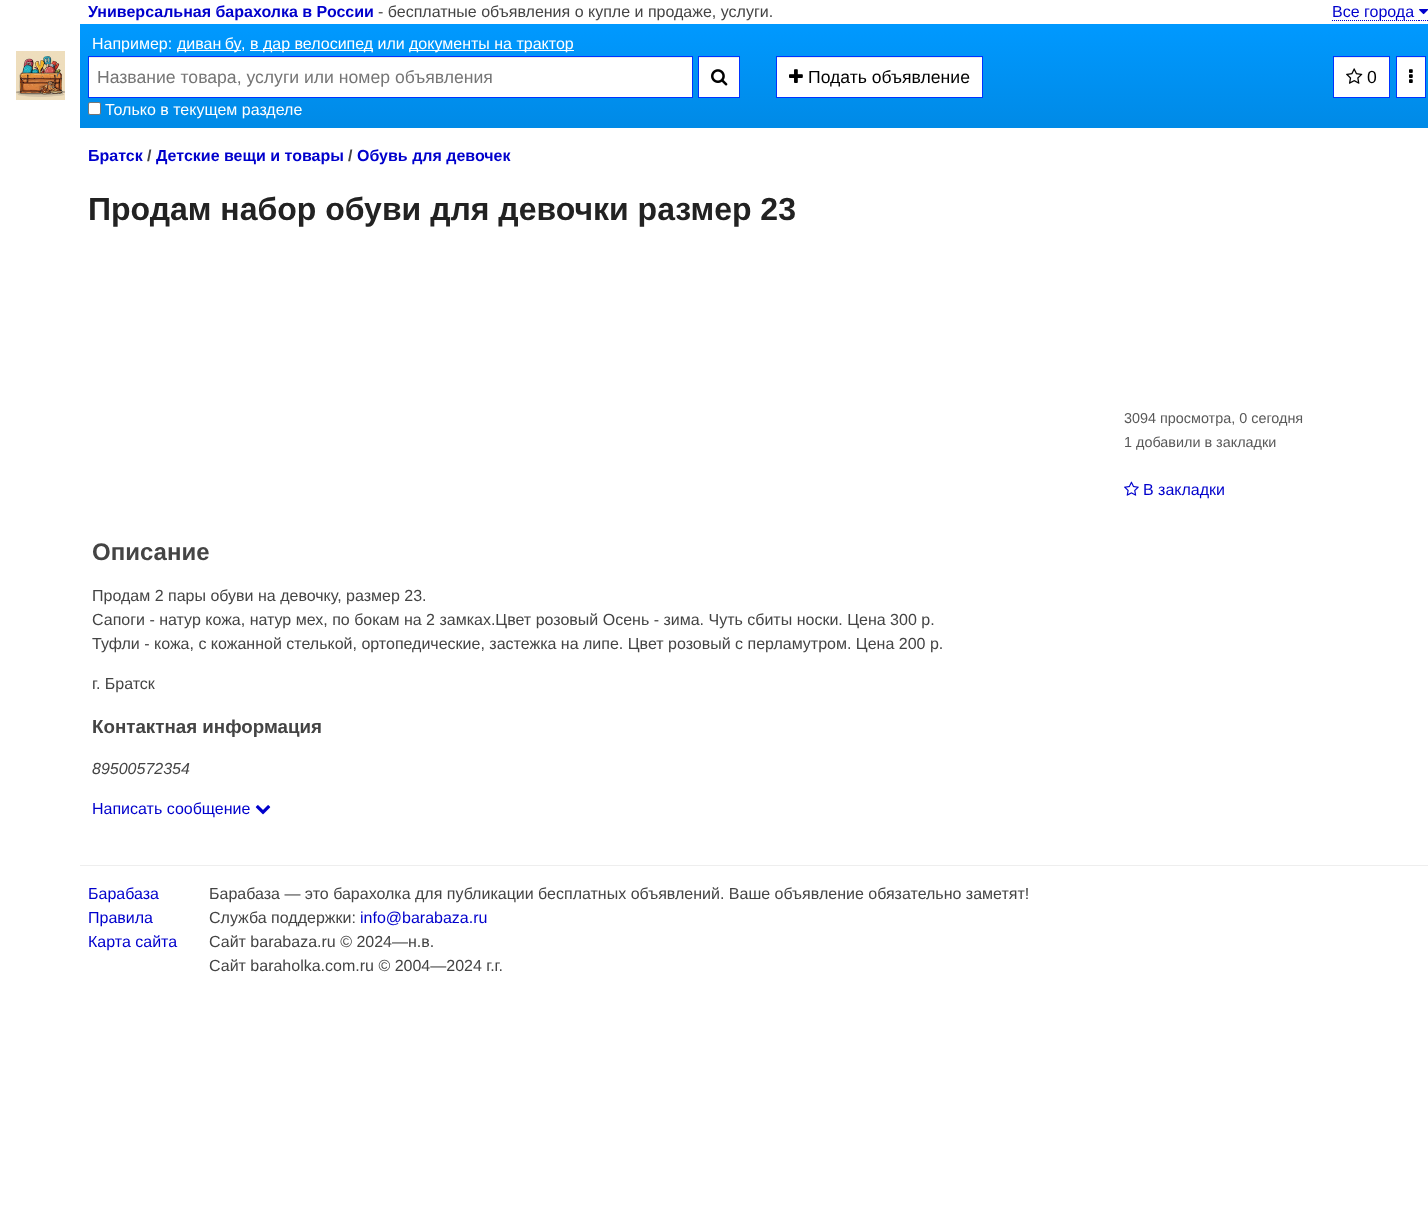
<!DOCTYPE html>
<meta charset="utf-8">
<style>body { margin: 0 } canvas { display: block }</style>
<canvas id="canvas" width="1428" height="1232"></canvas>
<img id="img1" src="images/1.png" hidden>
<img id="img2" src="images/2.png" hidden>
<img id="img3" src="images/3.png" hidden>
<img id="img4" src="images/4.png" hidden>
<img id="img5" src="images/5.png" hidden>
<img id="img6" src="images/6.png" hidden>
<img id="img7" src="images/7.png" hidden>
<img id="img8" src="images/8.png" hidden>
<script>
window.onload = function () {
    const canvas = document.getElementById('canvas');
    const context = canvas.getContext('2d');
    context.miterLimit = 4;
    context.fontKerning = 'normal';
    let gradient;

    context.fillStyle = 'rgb(255, 255, 255)';
    context.fillRect(0, 0, 1428, 1232);
    context.beginPath();
    context.moveTo(1332, 20.5);
    context.lineTo(1419, 20.5);
    context.strokeStyle = 'rgb(0, 0, 204)';
    context.setLineDash([1, 1]);
    context.stroke();
    context.beginPath();
    context.moveTo(1419, 20.5);
    context.lineTo(1428, 20.5);
    context.stroke();
    context.drawImage(document.getElementById('img1'), 1419, 9, 9, 6);
    gradient = context.createLinearGradient(0, 24, 0, 128);
    gradient.addColorStop(0, 'rgb(0, 153, 255)');
    gradient.addColorStop(1, 'rgb(0, 138, 230)');
    context.fillStyle = gradient;
    context.fillRect(80, 24, 1348, 104);
    context.drawImage(document.getElementById('img2'), 16, 51, 49, 49);
    context.fillStyle = 'rgb(255, 255, 255)';
    context.fillRect(177, 50, 64, 1);
    context.fillRect(250, 50, 123, 1);
    context.fillRect(409, 50, 165, 1);
    context.fillRect(89, 58, 603, 39);
    context.fillStyle = 'rgb(236, 236, 236)';
    context.fillRect(89, 57, 603, 1);
    context.strokeStyle = 'rgb(0, 51, 255)';
    context.setLineDash([]);
    context.strokeRect(88.5, 56.5, 604, 41);
    context.fillStyle = 'rgb(255, 255, 255)';
    context.fillRect(699, 58, 40, 39);
    context.fillStyle = 'rgb(236, 236, 236)';
    context.fillRect(699, 57, 40, 1);
    context.strokeRect(698.5, 56.5, 41, 41);
    context.drawImage(document.getElementById('img3'), 711, 69, 17, 17);
    context.fillStyle = 'rgb(255, 255, 255)';
    context.beginPath();
    context.roundRect(88.5, 102.5, 12, 12, 1.5);
    context.fill();
    context.strokeStyle = 'rgb(118, 118, 118)';
    context.stroke();
    context.fillRect(777, 58, 205, 39);
    context.fillStyle = 'rgb(236, 236, 236)';
    context.fillRect(777, 57, 205, 1);
    context.strokeStyle = 'rgb(0, 51, 255)';
    context.strokeRect(776.5, 56.5, 206, 41);
    context.drawImage(document.getElementById('img4'), 789, 69, 14, 14);
    context.fillStyle = 'rgb(255, 255, 255)';
    context.fillRect(1334, 58, 55, 39);
    context.fillStyle = 'rgb(236, 236, 236)';
    context.fillRect(1334, 57, 55, 1);
    context.strokeRect(1333.5, 56.5, 56, 41);
    context.drawImage(document.getElementById('img5'), 1346, 68, 17, 16);
    context.fillStyle = 'rgb(255, 255, 255)';
    context.fillRect(1397, 58, 28, 39);
    context.fillStyle = 'rgb(236, 236, 236)';
    context.fillRect(1397, 57, 28, 1);
    context.strokeRect(1396.5, 56.5, 29, 41);
    context.drawImage(document.getElementById('img6'), 1409, 69, 4, 14);
    context.drawImage(document.getElementById('img7'), 1124, 481, 15, 15);
    context.drawImage(document.getElementById('img8'), 255, 805, 16, 10);
    context.fillStyle = 'rgb(238, 238, 238)';
    context.fillRect(80, 865, 1348, 1);
    context.font = 'bold 16px Liberation Sans';
    context.fillStyle = 'rgb(0, 0, 204)';
    context.fillText('Универсальная барахолка в России', 88, 17);
    context.font = '16px Liberation Sans';
    context.fillStyle = 'rgb(68, 68, 68)';
    context.fillText('- бесплатные объявления о купле и продаже, услуги.', 378, 17);
    context.fillStyle = 'rgb(0, 0, 204)';
    context.fillText('Все города', 1332, 17);
    context.fillStyle = 'rgb(255, 255, 255)';
    context.fillText('Например:', 92, 49);
    context.wordSpacing = '-1px';
    context.fillText('диван бу', 177, 49);
    context.wordSpacing = '0px';
    context.fillText(',', 241, 49);
    context.fillText('в дар велосипед или', 250, 49);
    context.fillText('документы на трактор', 409, 49);
    context.font = '17.6px Liberation Sans';
    context.fillStyle = 'rgb(117, 117, 117)';
    context.fillText('Название товара, услуги или номер объявления', 97, 83);
    context.font = '16px Liberation Sans';
    context.fillStyle = 'rgb(255, 255, 255)';
    context.fillText('Только в текущем разделе', 105, 115);
    context.font = '17.6px Liberation Sans';
    context.fillStyle = 'rgb(0, 0, 0)';
    context.fillText('Подать объявление', 808, 83);
    context.fillText('0', 1367, 83);
    context.font = 'bold 16px Liberation Sans';
    context.fillStyle = 'rgb(0, 0, 204)';
    context.fillText('Братск', 88, 161);
    context.fillStyle = 'rgb(68, 68, 68)';
    context.fillText('/', 147, 161);
    context.fillStyle = 'rgb(0, 0, 204)';
    context.fillText('Детские вещи и товары', 156, 161);
    context.fillStyle = 'rgb(68, 68, 68)';
    context.fillText('/', 348, 161);
    context.fillStyle = 'rgb(0, 0, 204)';
    context.fillText('Обувь для девочек', 357, 161);
    context.font = 'bold 32px Liberation Sans';
    context.fillStyle = 'rgb(34, 34, 34)';
    context.fillText('Продам набор обуви для девочки размер 23', 88, 220);
    context.font = '14.4px Liberation Sans';
    context.fillStyle = 'rgb(89, 89, 89)';
    context.fillText('3094 просмотра, 0 сегодня', 1124, 423);
    context.fillText('1 добавили в закладки', 1124, 447);
    context.font = '16px Liberation Sans';
    context.fillStyle = 'rgb(0, 0, 204)';
    context.fillText('В закладки', 1143, 495);
    context.font = 'bold 24px Liberation Sans';
    context.fillStyle = 'rgb(68, 68, 68)';
    context.fillText('Описание', 92, 560);
    context.font = '16px Liberation Sans';
    context.fillText('Продам 2 пары обуви на девочку, размер 23.', 92, 601);
    context.fillText('Сапоги - натур кожа, натур мех, по бокам на 2 замках.Цвет розовый Осень - зима. Чуть сбиты носки. Цена 300 р.', 92, 625);
    context.fillText('Туфли - кожа, с кожанной стелькой, ортопедические, застежка на липе. Цвет розовый с перламутром. Цена 200 р.', 92, 649);
    context.fillText('г. Братск', 92, 689);
    context.font = 'bold 18.75px Liberation Sans';
    context.fillText('Контактная информация', 92, 733);
    context.font = 'italic 16px Liberation Sans';
    context.fillText('89500572354', 92, 774);
    context.font = '16px Liberation Sans';
    context.fillStyle = 'rgb(0, 0, 204)';
    context.fillText('Написать сообщение', 92, 814);
    context.fillText('Барабаза', 88, 899);
    context.fillText('Правила', 88, 923);
    context.fillText('Карта сайта', 88, 947);
    context.fillStyle = 'rgb(68, 68, 68)';
    context.fillText('Барабаза — это барахолка для публикации бесплатных объявлений. Ваше объявление обязательно заметят!', 209, 899);
    context.fillText('Служба поддержки:', 209, 923);
    context.fillStyle = 'rgb(0, 0, 204)';
    context.fillText('info@barabaza.ru', 360, 923);
    context.fillStyle = 'rgb(68, 68, 68)';
    context.fillText('Сайт barabaza.ru © 2024—н.в.', 209, 947);
    context.fillText('Сайт baraholka.com.ru © 2004—2024 г.г.', 209, 971);
};
</script>
